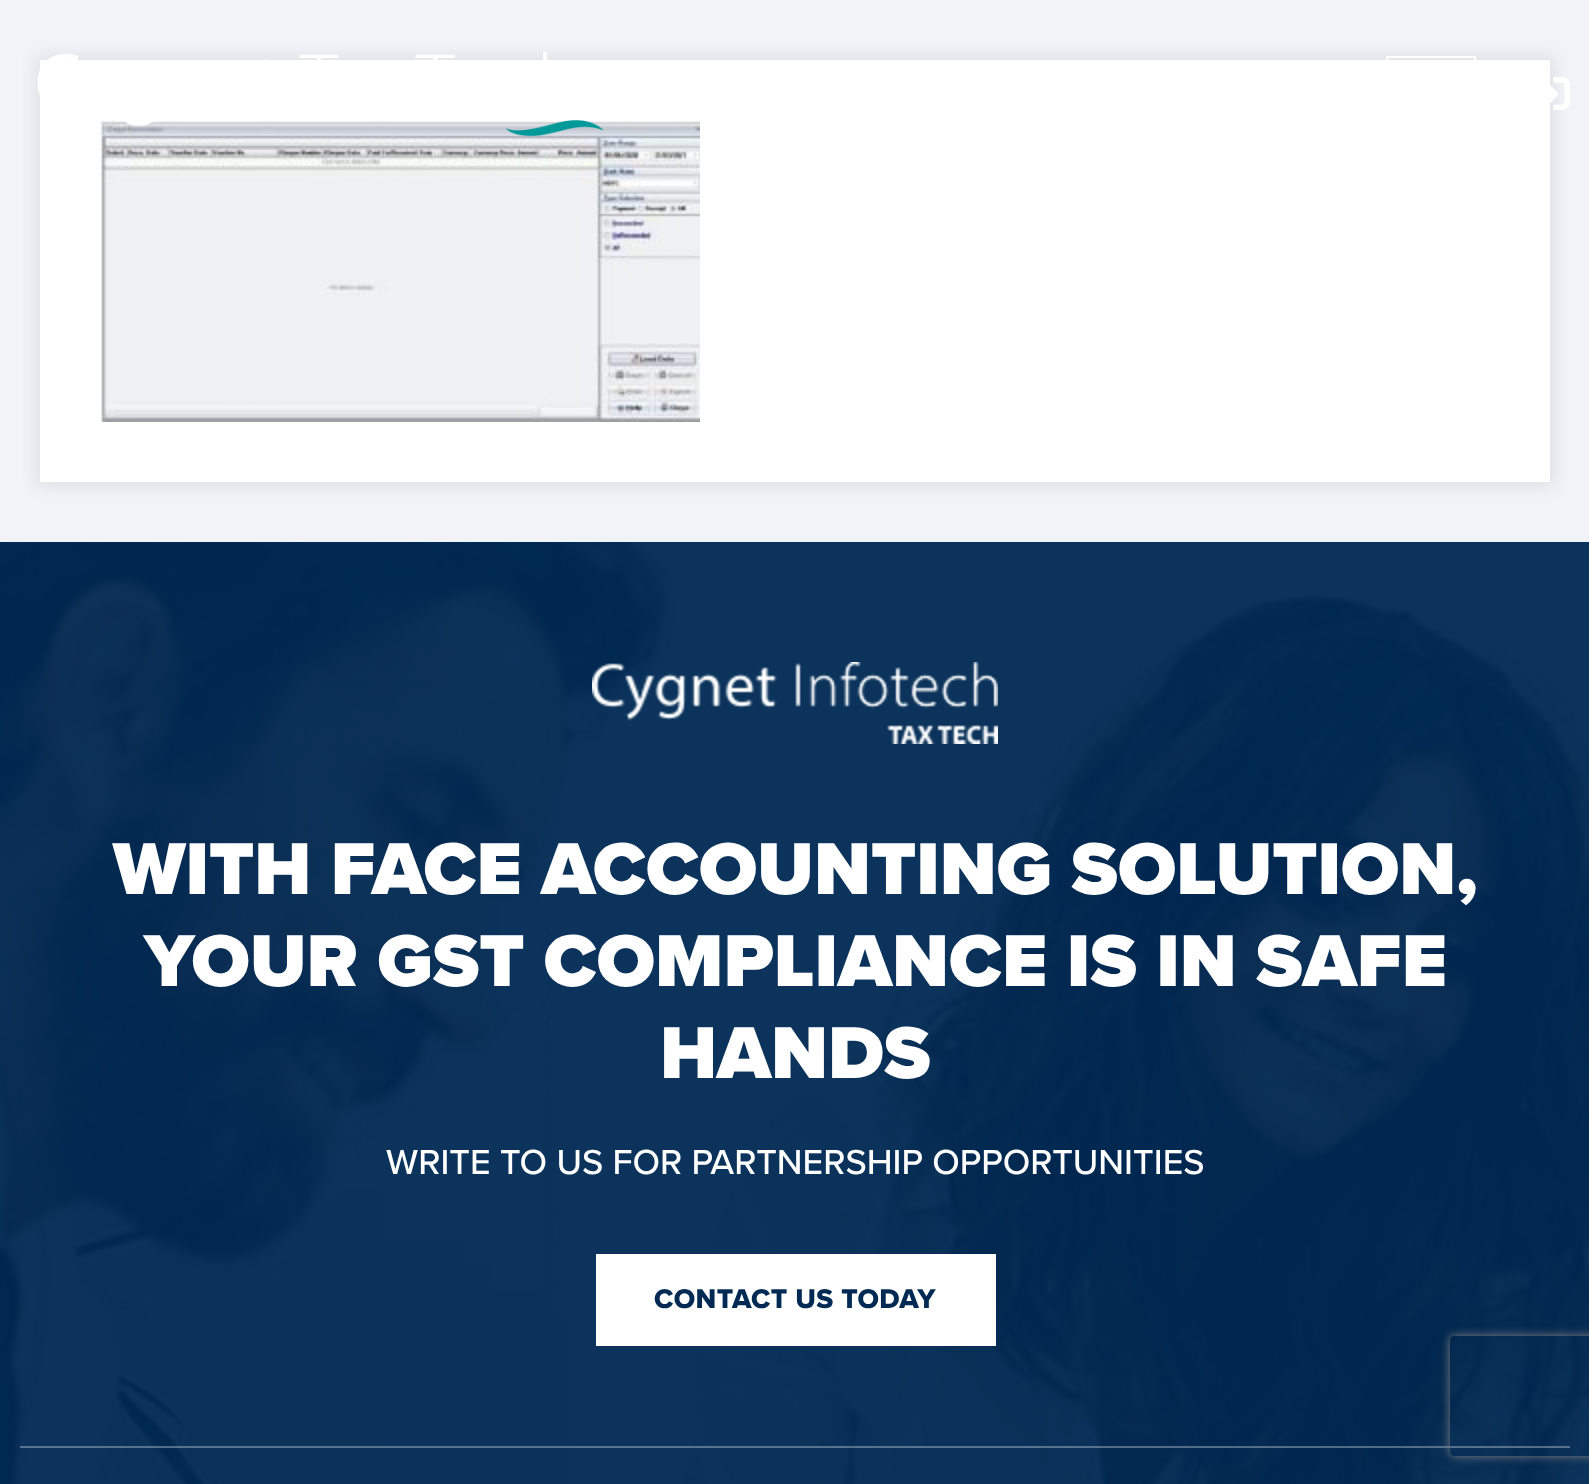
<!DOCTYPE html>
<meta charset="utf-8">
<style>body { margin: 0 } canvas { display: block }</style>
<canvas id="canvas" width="1589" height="1484"></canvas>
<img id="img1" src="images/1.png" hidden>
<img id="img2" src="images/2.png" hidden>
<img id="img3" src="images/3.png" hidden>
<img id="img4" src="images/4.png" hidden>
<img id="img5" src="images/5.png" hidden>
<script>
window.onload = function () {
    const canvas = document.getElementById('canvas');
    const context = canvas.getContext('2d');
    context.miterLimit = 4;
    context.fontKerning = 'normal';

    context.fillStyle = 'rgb(241, 243, 248)';
    context.fillRect(0, 0, 1589, 1484);
    context.fillStyle = 'rgba(0, 0, 0, 0.08)';
    context.filter = 'blur(8px)';
    context.beginPath();
    context.rect(36, 56, 1518, 430);
    context.fill();
    context.filter = 'none';
    context.fillStyle = 'rgb(255, 255, 255)';
    context.fillRect(40, 60, 1510, 422);
    context.drawImage(document.getElementById('img1'), 100, 120, 600, 302);
    context.drawImage(document.getElementById('img2'), 37, 52, 567, 85);
    context.strokeStyle = 'rgb(255, 255, 255)';
    context.lineWidth = 2;
    context.strokeRect(1387, 57, 88, 72);
    context.drawImage(document.getElementById('img3'), 1550, 77, 20, 33);
    context.fillStyle = 'rgb(0, 42, 84)';
    context.fillRect(0, 542, 1589, 942);
    context.drawImage(document.getElementById('img4'), 0, 542, 1589, 942);
    context.drawImage(document.getElementById('img5'), 592, 662, 406, 82);
    context.fillStyle = 'rgb(255, 255, 255)';
    context.fillRect(596, 1254, 400, 92);
    context.fillStyle = 'rgba(255, 255, 255, 0.32)';
    context.fillRect(20, 1446, 1550, 2);
    context.save();
    context.beginPath();
    context.moveTo(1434, 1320);
    context.lineTo(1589, 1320);
    context.lineTo(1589, 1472);
    context.lineTo(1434, 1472);
    context.closePath();
    context.moveTo(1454, 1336);
    context.lineTo(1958, 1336);
    context.bezierCurveTo(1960, 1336, 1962, 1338, 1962, 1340);
    context.lineTo(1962, 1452);
    context.bezierCurveTo(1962, 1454, 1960, 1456, 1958, 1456);
    context.lineTo(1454, 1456);
    context.bezierCurveTo(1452, 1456, 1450, 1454, 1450, 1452);
    context.lineTo(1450, 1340);
    context.bezierCurveTo(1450, 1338, 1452, 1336, 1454, 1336);
    context.closePath();
    context.clip('evenodd');
    context.fillStyle = 'rgb(128, 128, 128)';
    context.filter = 'blur(5px)';
    context.beginPath();
    context.roundRect(1450, 1336, 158, 120, 4);
    context.fill();
    context.filter = 'none';
    context.restore();
    context.font = '900 76px Proxima Nova';
    context.fillStyle = 'rgb(255, 255, 255)';
    context.fillText('WITH FACE ACCOUNTING SOLUTION,', 113, 894);
    context.fillText('YOUR GST COMPLIANCE IS IN SAFE', 144, 986);
    context.fillText('HANDS', 660, 1078);
    context.font = '500 36px Proxima Nova';
    context.fillText('WRITE TO US FOR PARTNERSHIP OPPORTUNITIES', 386, 1174);
    context.letterSpacing = '0.4px';
    context.font = '800 28px Proxima Nova';
    context.fillStyle = 'rgb(0, 42, 84)';
    context.fillText('CONTACT US TODAY', 654, 1308);
};
</script>
